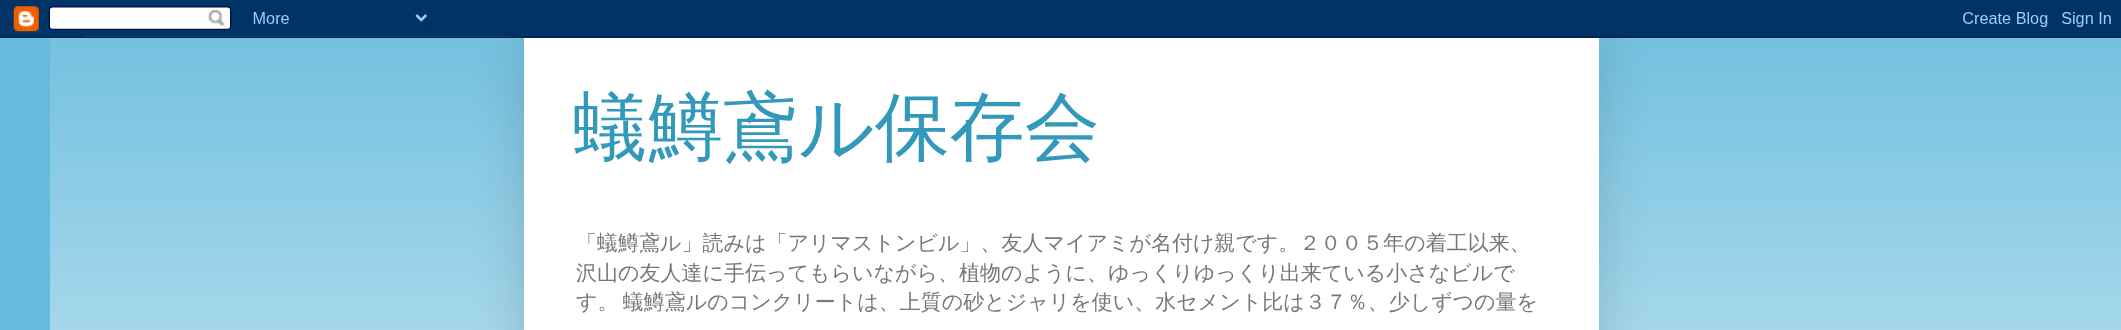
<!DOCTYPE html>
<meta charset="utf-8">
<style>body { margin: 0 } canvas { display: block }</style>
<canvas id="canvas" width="2121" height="330"></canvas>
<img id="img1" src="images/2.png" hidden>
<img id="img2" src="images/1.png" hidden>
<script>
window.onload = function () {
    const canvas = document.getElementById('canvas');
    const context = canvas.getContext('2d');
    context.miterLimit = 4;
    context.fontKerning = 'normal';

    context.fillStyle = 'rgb(102, 187, 221)';
    context.fillRect(0, 0, 2121, 330);
    context.drawImage(document.getElementById('img1'), 50, 36, 2071, 294);
    context.fillStyle = 'rgba(0, 0, 0, 0.15)';
    context.filter = 'blur(25px)';
    context.beginPath();
    context.rect(524, 38, 1075, 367);
    context.fill();
    context.filter = 'none';
    context.drawImage(document.getElementById('img2'), 0, 0, 2121, 38);
    context.fillStyle = 'rgb(255, 255, 255)';
    context.fillRect(524, 38, 1075, 292);
    context.font = '500 75px WenQuanYi Zen Hei';
    context.fillStyle = 'rgb(51, 153, 187)';
    context.fillText('蟻鱒鳶ル保存会', 573, 153);
    context.font = '500 21px WenQuanYi Zen Hei';
    context.fillStyle = 'rgb(119, 119, 119)';
    context.fillText('「蟻鱒鳶ル」読みは「アリマストンビル」、友人マイアミが名付け親です。２００５年の着工以来、', 576, 250);
    context.fillText('沢山の友人達に手伝ってもらいながら、植物のように、ゆっくりゆっくり出来ている小さなビルで', 576, 280);
    context.wordSpacing = '-2px';
    context.fillText('す。 蟻鱒鳶ルのコンクリートは、上質の砂とジャリを使い、水セメント比は３７％、少しずつの量を', 576, 309);
};
</script>
